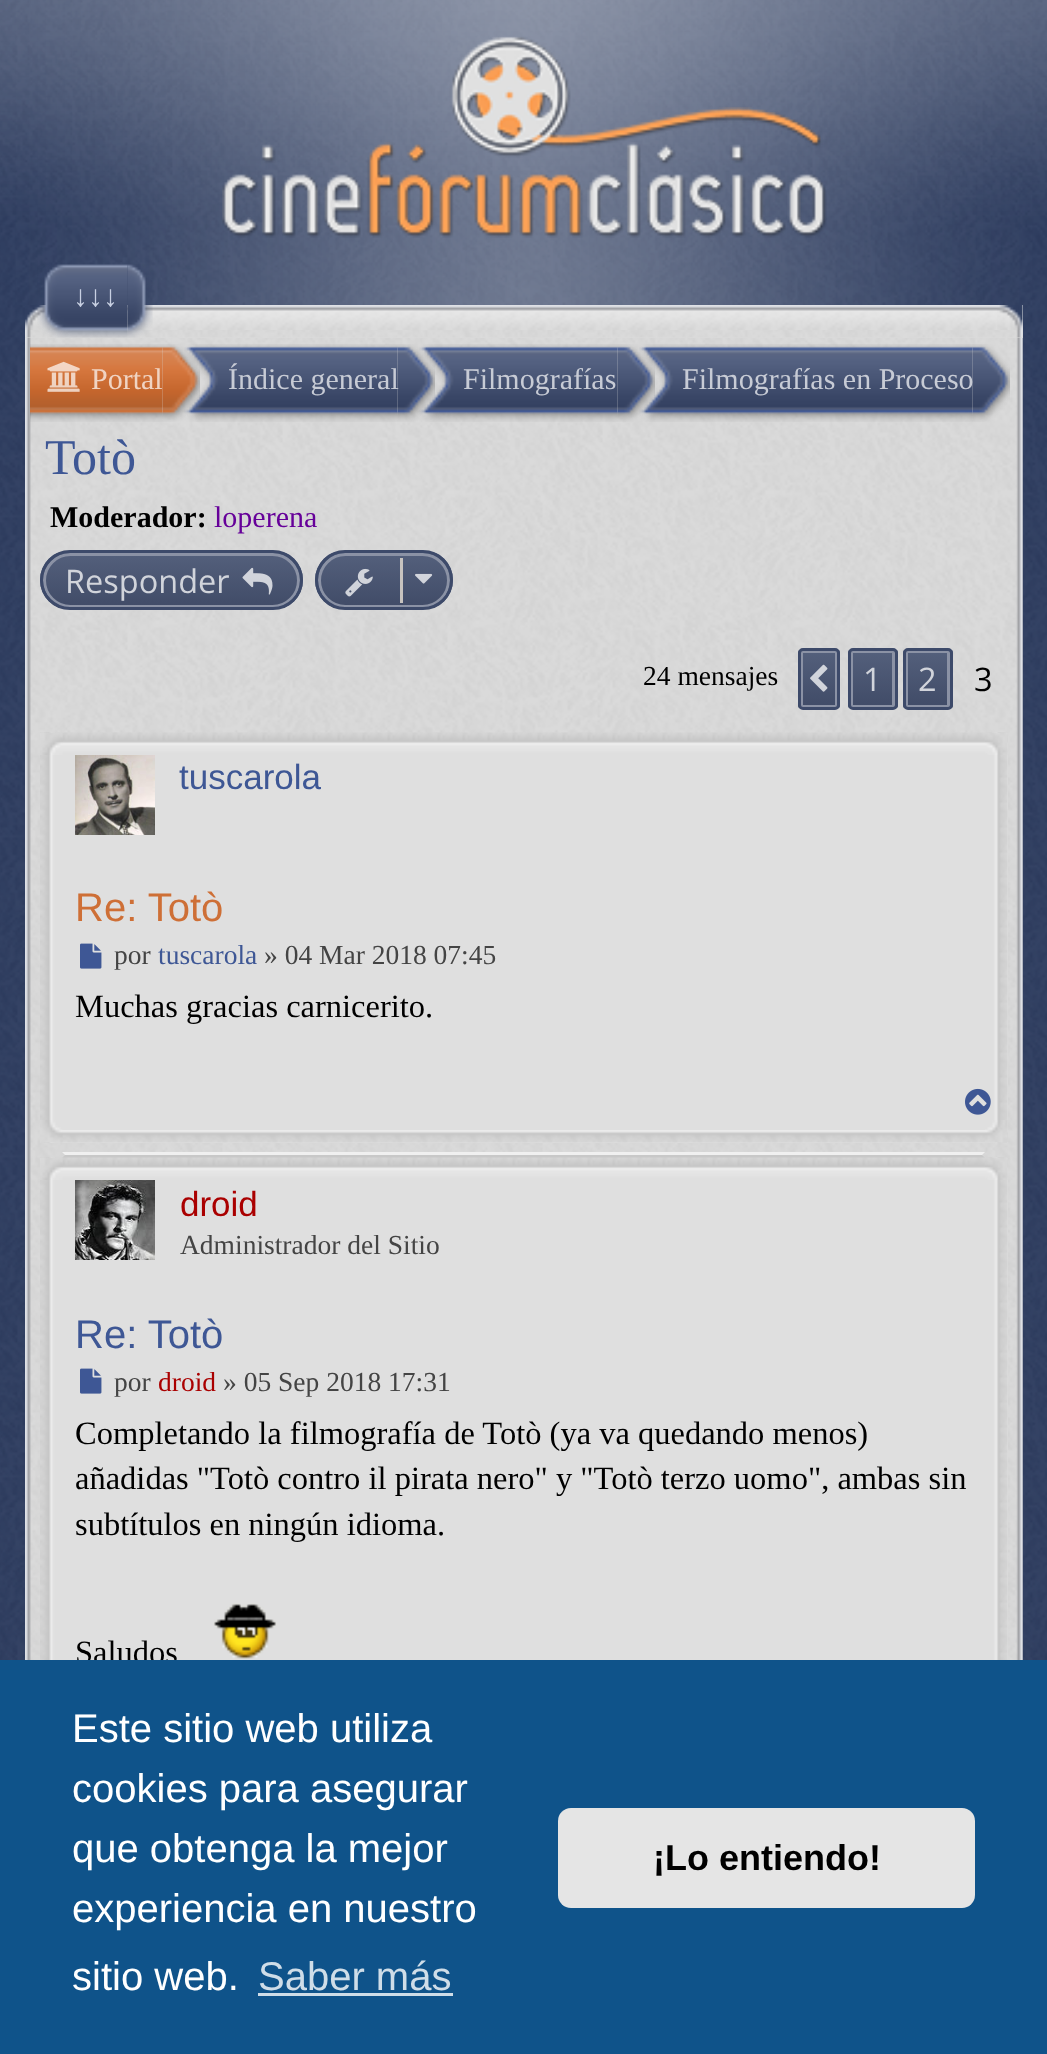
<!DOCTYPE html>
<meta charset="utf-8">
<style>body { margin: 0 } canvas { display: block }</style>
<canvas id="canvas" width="1047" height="2054"></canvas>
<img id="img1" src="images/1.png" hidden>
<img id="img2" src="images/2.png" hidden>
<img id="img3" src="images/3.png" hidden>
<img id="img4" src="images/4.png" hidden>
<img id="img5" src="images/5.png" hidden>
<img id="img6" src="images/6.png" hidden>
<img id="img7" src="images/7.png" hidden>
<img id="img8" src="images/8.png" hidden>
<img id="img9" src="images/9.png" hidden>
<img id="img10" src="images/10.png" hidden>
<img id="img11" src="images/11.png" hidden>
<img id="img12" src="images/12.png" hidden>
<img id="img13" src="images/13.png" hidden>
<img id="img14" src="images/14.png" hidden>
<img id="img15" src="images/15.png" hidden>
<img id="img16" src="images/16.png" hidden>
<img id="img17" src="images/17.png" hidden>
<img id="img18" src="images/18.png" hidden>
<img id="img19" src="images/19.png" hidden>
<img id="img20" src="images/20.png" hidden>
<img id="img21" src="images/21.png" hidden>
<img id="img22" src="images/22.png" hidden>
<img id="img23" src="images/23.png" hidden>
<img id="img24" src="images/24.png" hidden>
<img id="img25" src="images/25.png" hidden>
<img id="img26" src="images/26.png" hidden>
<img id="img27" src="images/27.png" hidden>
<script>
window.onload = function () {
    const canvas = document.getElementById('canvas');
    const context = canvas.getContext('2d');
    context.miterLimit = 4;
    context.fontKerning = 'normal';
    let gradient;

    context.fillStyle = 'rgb(255, 255, 255)';
    context.fillRect(0, 0, 1047, 2054);
    context.drawImage(document.getElementById('img1'), 0, 0, 1047, 1660);
    context.drawImage(document.getElementById('img2'), 0, 0, 1047, 305);
    context.drawImage(document.getElementById('img3'), 222, 36, 605, 202);
    context.fillStyle = 'rgb(218, 218, 218)';
    context.fillRect(25, 305, 998, 33);
    context.drawImage(document.getElementById('img4'), 25, 305, 998, 33);
    context.drawImage(document.getElementById('img5'), 37, 264, 91, 74);
    context.drawImage(document.getElementById('img6'), 127, 264, 26, 74);
    context.drawImage(document.getElementById('img7'), 25, 338, 998, 1322);
    context.drawImage(document.getElementById('img8'), 162, 344, 38, 78);
    context.drawImage(document.getElementById('img9'), 30, 344, 133, 78);
    context.drawImage(document.getElementById('img10'), 47, 361, 33, 31);
    context.drawImage(document.getElementById('img11'), 397, 344, 38, 78);
    context.drawImage(document.getElementById('img12'), 184, 344, 214, 78);
    context.drawImage(document.getElementById('img13'), 617, 344, 38, 78);
    context.drawImage(document.getElementById('img14'), 419, 344, 199, 78);
    context.drawImage(document.getElementById('img15'), 972, 344, 38, 78);
    context.drawImage(document.getElementById('img16'), 639, 344, 334, 78);
    context.save();
    context.beginPath();
    context.roundRect(40, 550, 263, 60, 30);
    context.clip();
    gradient = context.createLinearGradient(171, 553, 171, 608);
    gradient.addColorStop(0, 'rgb(84, 96, 124)');
    gradient.addColorStop(1, 'rgb(64, 75, 103)');
    context.fillStyle = gradient;
    context.fillRect(40, 553, 263, 55);
    context.restore();
    context.beginPath();
    context.roundRect(44.5, 554.5, 254, 52, 26);
    context.strokeStyle = 'rgb(139, 146, 165)';
    context.lineWidth = 3;
    context.stroke();
    context.beginPath();
    context.roundRect(41.5, 551.5, 260, 57, 28.5);
    context.strokeStyle = 'rgb(61, 74, 106)';
    context.stroke();
    context.drawImage(document.getElementById('img17'), 242, 567, 31, 28);
    context.save();
    context.beginPath();
    context.roundRect(315, 550, 138, 60, 30);
    context.clip();
    gradient = context.createLinearGradient(384, 553, 384, 608);
    gradient.addColorStop(0, 'rgb(84, 96, 124)');
    gradient.addColorStop(1, 'rgb(64, 75, 103)');
    context.fillStyle = gradient;
    context.fillRect(315, 553, 138, 55);
    context.restore();
    context.beginPath();
    context.roundRect(319.5, 554.5, 129, 52, 26);
    context.strokeStyle = 'rgb(139, 146, 165)';
    context.stroke();
    context.beginPath();
    context.roundRect(316.5, 551.5, 135, 57, 28.5);
    context.strokeStyle = 'rgb(61, 74, 106)';
    context.stroke();
    context.drawImage(document.getElementById('img18'), 345, 568, 28, 29);
    context.fillStyle = 'rgb(199, 195, 191)';
    context.fillRect(400, 558, 3, 45);
    context.drawImage(document.getElementById('img19'), 415, 573, 18, 11);
    context.save();
    context.beginPath();
    context.roundRect(798, 648, 42, 62, 5);
    context.clip();
    gradient = context.createLinearGradient(819, 650, 819, 708);
    gradient.addColorStop(0, 'rgb(84, 96, 124)');
    gradient.addColorStop(1, 'rgb(64, 75, 103)');
    context.fillStyle = gradient;
    context.fillRect(798, 650, 42, 58);
    context.restore();
    context.strokeStyle = 'rgb(139, 146, 165)';
    context.strokeRect(801.5, 651.5, 35, 55);
    context.beginPath();
    context.roundRect(799.5, 649.5, 39, 59, 3.5);
    context.strokeStyle = 'rgb(61, 74, 106)';
    context.stroke();
    context.drawImage(document.getElementById('img20'), 810, 664, 18, 28);
    context.save();
    context.beginPath();
    context.roundRect(848, 648, 50, 62, 5);
    context.clip();
    gradient = context.createLinearGradient(873, 650, 873, 708);
    gradient.addColorStop(0, 'rgb(84, 96, 124)');
    gradient.addColorStop(1, 'rgb(64, 75, 103)');
    context.fillStyle = gradient;
    context.fillRect(848, 650, 50, 58);
    context.restore();
    context.beginPath();
    context.roundRect(851.5, 651.5, 42, 55, 1);
    context.strokeStyle = 'rgb(139, 146, 165)';
    context.stroke();
    context.beginPath();
    context.roundRect(849.5, 649.5, 47, 59, 3.5);
    context.strokeStyle = 'rgb(61, 74, 106)';
    context.stroke();
    context.save();
    context.beginPath();
    context.roundRect(903, 648, 50, 62, 5);
    context.clip();
    gradient = context.createLinearGradient(928, 650, 928, 708);
    gradient.addColorStop(0, 'rgb(84, 96, 124)');
    gradient.addColorStop(1, 'rgb(64, 75, 103)');
    context.fillStyle = gradient;
    context.fillRect(903, 650, 50, 58);
    context.restore();
    context.beginPath();
    context.roundRect(906.5, 651.5, 42, 55, 1);
    context.strokeStyle = 'rgb(139, 146, 165)';
    context.stroke();
    context.beginPath();
    context.roundRect(904.5, 649.5, 47, 59, 3.5);
    context.strokeStyle = 'rgb(61, 74, 106)';
    context.stroke();
    context.fillStyle = 'rgb(223, 223, 223)';
    context.fillRect(40, 733, 968, 410);
    context.drawImage(document.getElementById('img21'), 40, 732, 968, 411);
    context.drawImage(document.getElementById('img22'), 75, 755, 80, 80);
    context.drawImage(document.getElementById('img23'), 80, 943, 22, 26);
    context.drawImage(document.getElementById('img24'), 965, 1088, 26, 27);
    context.fillStyle = 'rgb(240, 240, 240)';
    context.beginPath();
    context.moveTo(62, 1152);
    context.lineTo(985, 1152);
    context.lineTo(982, 1155);
    context.lineTo(65, 1155);
    context.closePath();
    context.fill();
    context.fillStyle = 'rgb(200, 200, 200)';
    context.beginPath();
    context.moveTo(985, 1158);
    context.lineTo(62, 1158);
    context.lineTo(65, 1155);
    context.lineTo(982, 1155);
    context.closePath();
    context.fill();
    context.fillStyle = 'rgb(223, 223, 223)';
    context.fillRect(55, 1158, 953, 502);
    context.drawImage(document.getElementById('img25'), 40, 1157, 968, 503);
    context.drawImage(document.getElementById('img26'), 75, 1180, 80, 80);
    context.drawImage(document.getElementById('img23'), 80, 1368, 22, 26);
    context.drawImage(document.getElementById('img27'), 213, 1603, 64, 56);
    context.font = '30px Liberation Serif';
    context.fillStyle = 'rgb(200, 208, 226)';
    context.fillText('↓↓↓', 73, 306);
    context.fillStyle = 'rgb(240, 212, 195)';
    context.fillText('Portal', 91, 389);
    context.fillStyle = 'rgb(199, 203, 213)';
    context.fillText('Índice general', 228, 389);
    context.fillText('Filmografías', 463, 389);
    context.fillText('Filmografías en Proceso', 682, 389);
    context.font = '50px Liberation Serif';
    context.fillStyle = 'rgb(62, 87, 149)';
    context.fillText('Totò', 45, 474);
    context.font = 'bold 30px Liberation Serif';
    context.fillStyle = 'rgb(0, 0, 0)';
    context.fillText('Moderador:', 50, 527);
    context.font = '30px Liberation Serif';
    context.fillStyle = 'rgb(102, 0, 153)';
    context.fillText('loperena', 214, 527);
    context.font = '32.5px Open Sans';
    context.fillStyle = 'rgb(209, 212, 219)';
    context.fillText('Responder', 65, 593);
    context.font = '27.5px Liberation Serif';
    context.fillStyle = 'rgb(0, 0, 0)';
    context.fillText('24 mensajes', 643, 685);
    context.font = '32.5px Open Sans';
    context.fillStyle = 'rgb(209, 212, 219)';
    context.fillText('1', 863, 691);
    context.fillText('2', 918, 691);
    context.fillStyle = 'rgb(0, 0, 0)';
    context.fillText('3', 974, 691);
    context.font = '35px Liberation Sans';
    context.fillStyle = 'rgb(62, 87, 149)';
    context.fillText('tuscarola', 179, 789);
    context.font = '40px Liberation Sans';
    context.fillStyle = 'rgb(206, 111, 54)';
    context.fillText('Re: Totò', 75, 921);
    context.font = '27.5px Liberation Serif';
    context.fillStyle = 'rgb(68, 68, 68)';
    context.fillText('por', 114, 964);
    context.fillStyle = 'rgb(62, 87, 149)';
    context.fillText('tuscarola', 158, 964);
    context.fillStyle = 'rgb(68, 68, 68)';
    context.fillText('» 04 Mar 2018 07:45', 264, 964);
    context.font = '32.5px Liberation Serif';
    context.fillStyle = 'rgb(0, 0, 0)';
    context.fillText('Muchas gracias carnicerito.', 75, 1017);
    context.font = '35px Liberation Sans';
    context.fillStyle = 'rgb(170, 0, 0)';
    context.fillText('droid', 180, 1216);
    context.font = '27.5px Liberation Serif';
    context.fillStyle = 'rgb(68, 68, 68)';
    context.fillText('Administrador del Sitio', 180, 1254);
    context.font = '40px Liberation Sans';
    context.fillStyle = 'rgb(62, 87, 149)';
    context.fillText('Re: Totò', 75, 1348);
    context.font = '27.5px Liberation Serif';
    context.fillStyle = 'rgb(68, 68, 68)';
    context.fillText('por', 114, 1391);
    context.fillStyle = 'rgb(170, 0, 0)';
    context.fillText('droid', 158, 1391);
    context.fillStyle = 'rgb(68, 68, 68)';
    context.fillText('» 05 Sep 2018 17:31', 223, 1391);
    context.font = '32.5px Liberation Serif';
    context.fillStyle = 'rgb(0, 0, 0)';
    context.fillText('Completando la filmografía de Totò (ya va quedando menos)', 75, 1444);
    context.fillText('añadidas "Totò contro il pirata nero" y "Totò terzo uomo", ambas sin', 75, 1489);
    context.fillText('subtítulos en ningún idioma.', 75, 1535);
    context.fillText('Saludos', 75, 1663);
    context.fillStyle = 'rgb(15, 83, 138)';
    context.fillRect(0, 1660, 1047, 394);
    context.font = '40px Liberation Sans';
    context.fillStyle = 'rgb(255, 255, 255)';
    context.fillText('Este sitio web utiliza', 72, 1742);
    context.fillText('cookies para asegurar', 72, 1802);
    context.fillText('que obtenga la mejor', 72, 1862);
    context.fillText('experiencia en nuestro', 72, 1922);
    context.fillText('sitio web.', 72, 1990);
    context.fillStyle = 'rgb(207, 221, 232)';
    context.fillText('Saber más', 258, 1990);
    context.fillRect(258, 1993, 195, 3);
    context.fillStyle = 'rgb(229, 229, 229)';
    context.beginPath();
    context.roundRect(558, 1808, 417, 100, 13);
    context.fill();
    context.font = 'bold 36px Liberation Sans';
    context.fillStyle = 'rgb(0, 0, 0)';
    context.fillText('¡Lo entiendo!', 653, 1870);
};
</script>
